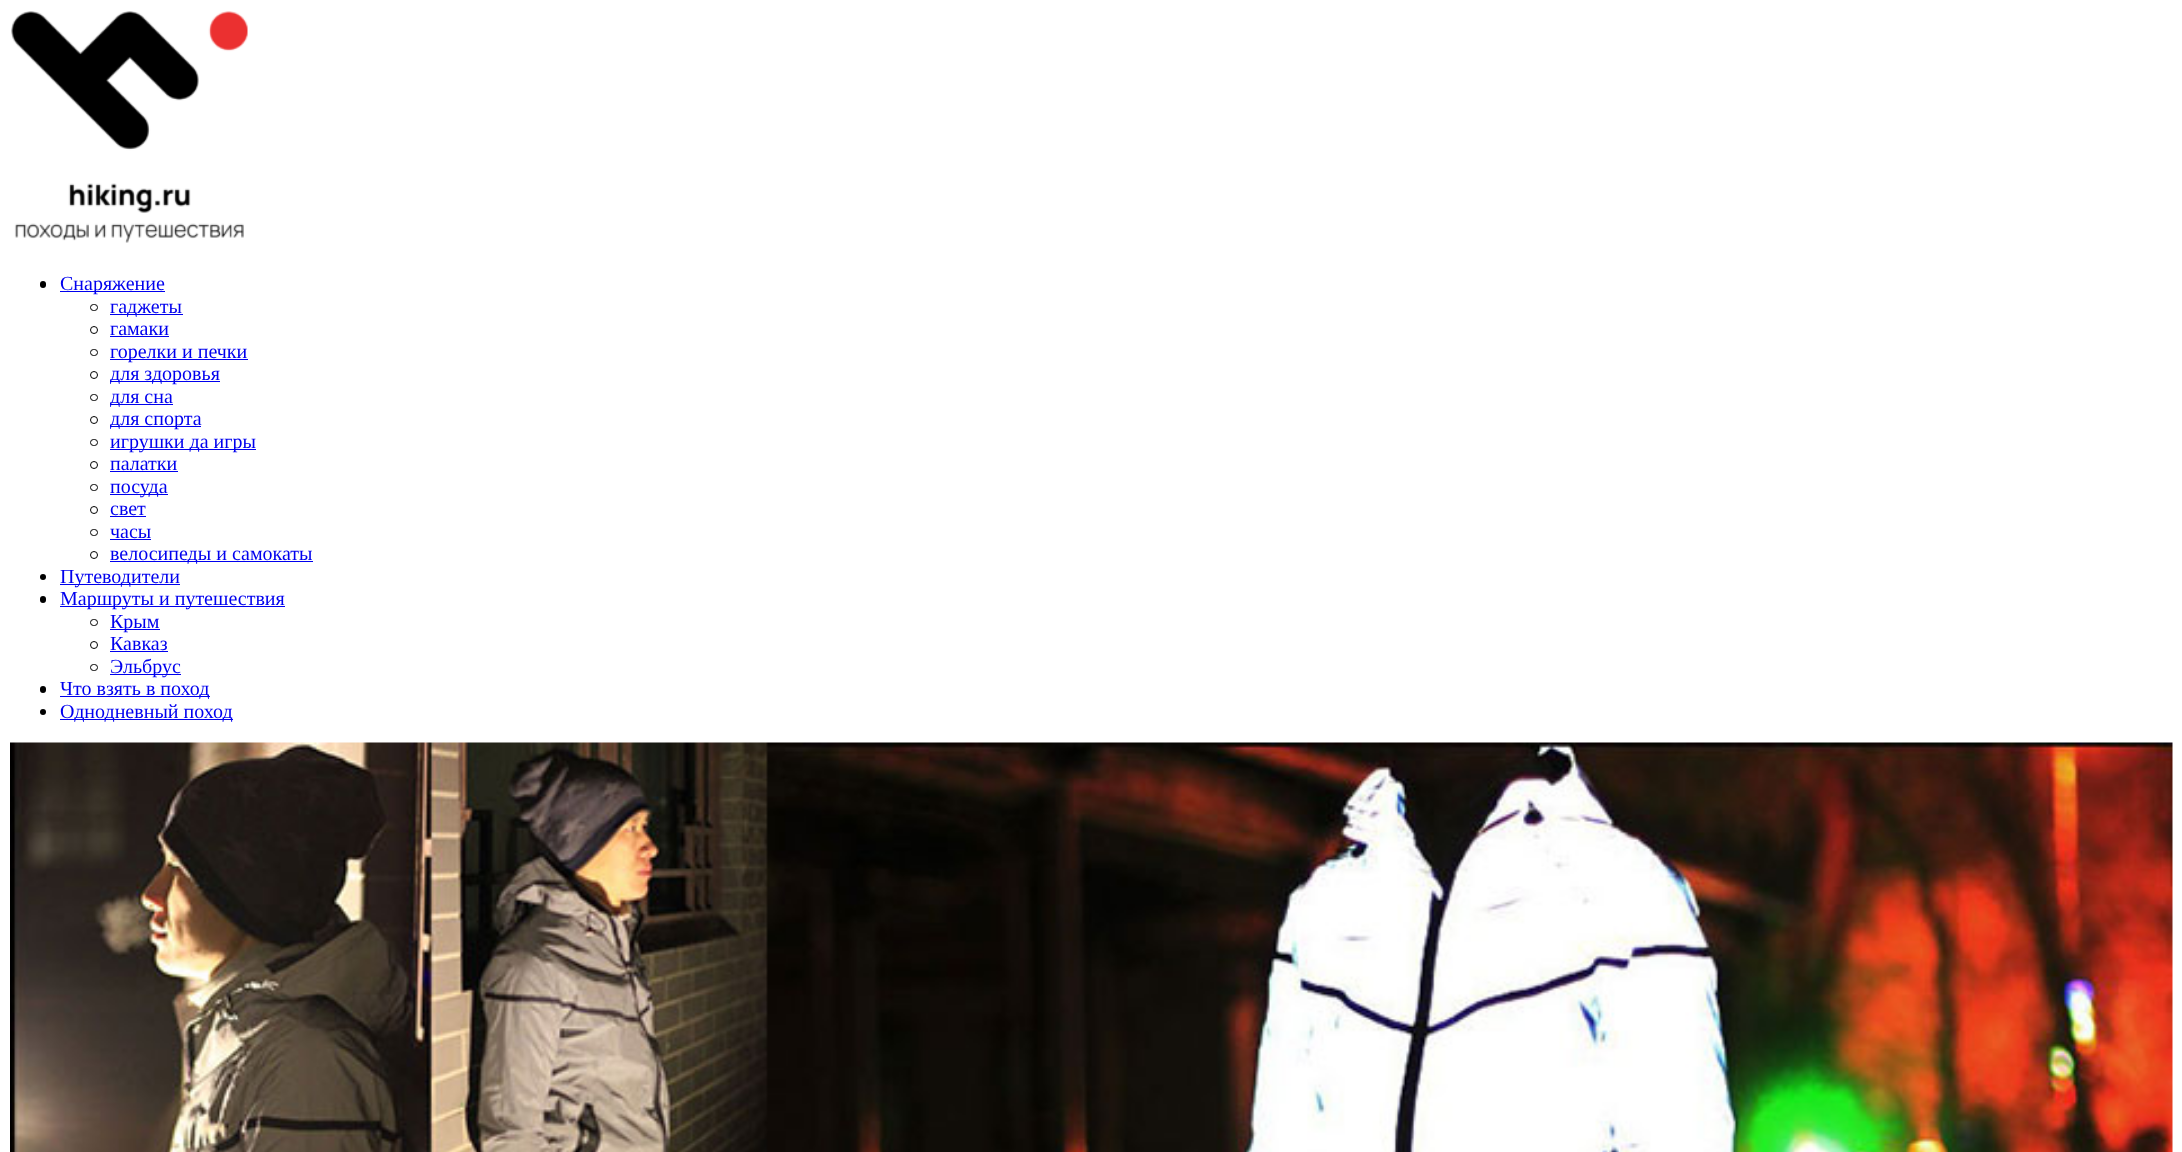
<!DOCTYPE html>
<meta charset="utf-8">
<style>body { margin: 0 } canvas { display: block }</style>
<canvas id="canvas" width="2182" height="1152"></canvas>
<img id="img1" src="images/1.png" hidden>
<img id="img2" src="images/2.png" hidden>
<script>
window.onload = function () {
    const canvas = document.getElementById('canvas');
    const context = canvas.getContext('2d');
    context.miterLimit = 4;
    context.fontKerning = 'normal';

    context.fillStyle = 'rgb(255, 255, 255)';
    context.fillRect(0, 0, 2182, 1152);
    context.drawImage(document.getElementById('img1'), 11, 11, 237, 232);
    context.fillStyle = 'rgb(0, 0, 0)';
    context.beginPath();
    context.roundRect(40, 281, 6, 7, 3);
    context.fill();
    context.fillStyle = 'rgb(0, 0, 238)';
    context.fillRect(60, 291, 105, 1);
    context.beginPath();
    context.roundRect(90.5, 304.5, 7, 6, 3);
    context.strokeStyle = 'rgb(0, 0, 0)';
    context.stroke();
    context.fillRect(110, 314, 73, 1);
    context.beginPath();
    context.arc(94, 330, 3.5, 0, 2 * Math.PI);
    context.stroke();
    context.fillRect(110, 336, 59, 1);
    context.beginPath();
    context.roundRect(90.5, 349.5, 7, 6, 3);
    context.stroke();
    context.fillRect(110, 359, 138, 1);
    context.beginPath();
    context.arc(94, 375, 3.5, 0, 2 * Math.PI);
    context.stroke();
    context.fillRect(110, 381, 110, 1);
    context.beginPath();
    context.roundRect(90.5, 394.5, 7, 6, 3);
    context.stroke();
    context.fillRect(110, 404, 63, 1);
    context.beginPath();
    context.arc(94, 420, 3.5, 0, 2 * Math.PI);
    context.stroke();
    context.fillRect(110, 426, 91, 1);
    context.beginPath();
    context.roundRect(90.5, 439.5, 7, 6, 3);
    context.stroke();
    context.fillRect(110, 449, 146, 1);
    context.beginPath();
    context.arc(94, 465, 3.5, 0, 2 * Math.PI);
    context.stroke();
    context.fillRect(110, 471, 68, 1);
    context.beginPath();
    context.roundRect(90.5, 484.5, 7, 6, 3);
    context.stroke();
    context.fillRect(110, 494, 58, 1);
    context.beginPath();
    context.arc(94, 510, 3.5, 0, 2 * Math.PI);
    context.stroke();
    context.fillRect(110, 516, 36, 1);
    context.beginPath();
    context.roundRect(90.5, 529.5, 7, 6, 3);
    context.stroke();
    context.fillRect(110, 539, 41, 1);
    context.beginPath();
    context.arc(94, 555, 3.5, 0, 2 * Math.PI);
    context.stroke();
    context.fillRect(110, 561, 203, 1);
    context.fillStyle = 'rgb(0, 0, 0)';
    context.beginPath();
    context.arc(43, 577, 3, 0, 2 * Math.PI);
    context.fill();
    context.fillStyle = 'rgb(0, 0, 238)';
    context.fillRect(60, 584, 120, 1);
    context.fillStyle = 'rgb(0, 0, 0)';
    context.beginPath();
    context.roundRect(40, 596, 6, 7, 3);
    context.fill();
    context.fillStyle = 'rgb(0, 0, 238)';
    context.fillRect(60, 606, 225, 1);
    context.beginPath();
    context.roundRect(90.5, 619.5, 7, 6, 3);
    context.stroke();
    context.fillRect(110, 629, 50, 1);
    context.beginPath();
    context.arc(94, 645, 3.5, 0, 2 * Math.PI);
    context.stroke();
    context.fillRect(110, 651, 58, 1);
    context.beginPath();
    context.roundRect(90.5, 664.5, 7, 6, 3);
    context.stroke();
    context.fillRect(110, 674, 71, 1);
    context.fillStyle = 'rgb(0, 0, 0)';
    context.beginPath();
    context.roundRect(40, 686, 6, 7, 3);
    context.fill();
    context.fillStyle = 'rgb(0, 0, 238)';
    context.fillRect(60, 696, 150, 1);
    context.fillStyle = 'rgb(0, 0, 0)';
    context.beginPath();
    context.arc(43, 712, 3, 0, 2 * Math.PI);
    context.fill();
    context.fillStyle = 'rgb(0, 0, 238)';
    context.fillRect(60, 719, 173, 1);
    context.drawImage(document.getElementById('img2'), 10, 742, 2163, 410);
    context.font = '20px Liberation Serif';
    context.fillText('Снаряжение', 60, 290);
    context.fillText('гаджеты', 110, 313);
    context.fillText('гамаки', 110, 335);
    context.fillText('горелки и печки', 110, 358);
    context.fillText('для здоровья', 110, 380);
    context.fillText('для сна', 110, 403);
    context.fillText('для спорта', 110, 425);
    context.fillText('игрушки да игры', 110, 448);
    context.fillText('палатки', 110, 470);
    context.fillText('посуда', 110, 493);
    context.fillText('свет', 110, 515);
    context.fillText('часы', 110, 538);
    context.fillText('велосипеды и самокаты', 110, 560);
    context.fillText('Путеводители', 60, 583);
    context.fillText('Маршруты и путешествия', 60, 605);
    context.fillText('Крым', 110, 628);
    context.fillText('Кавказ', 110, 650);
    context.fillText('Эльбрус', 110, 673);
    context.fillText('Что взять в поход', 60, 695);
    context.fillText('Однодневный поход', 60, 718);
};
</script>
